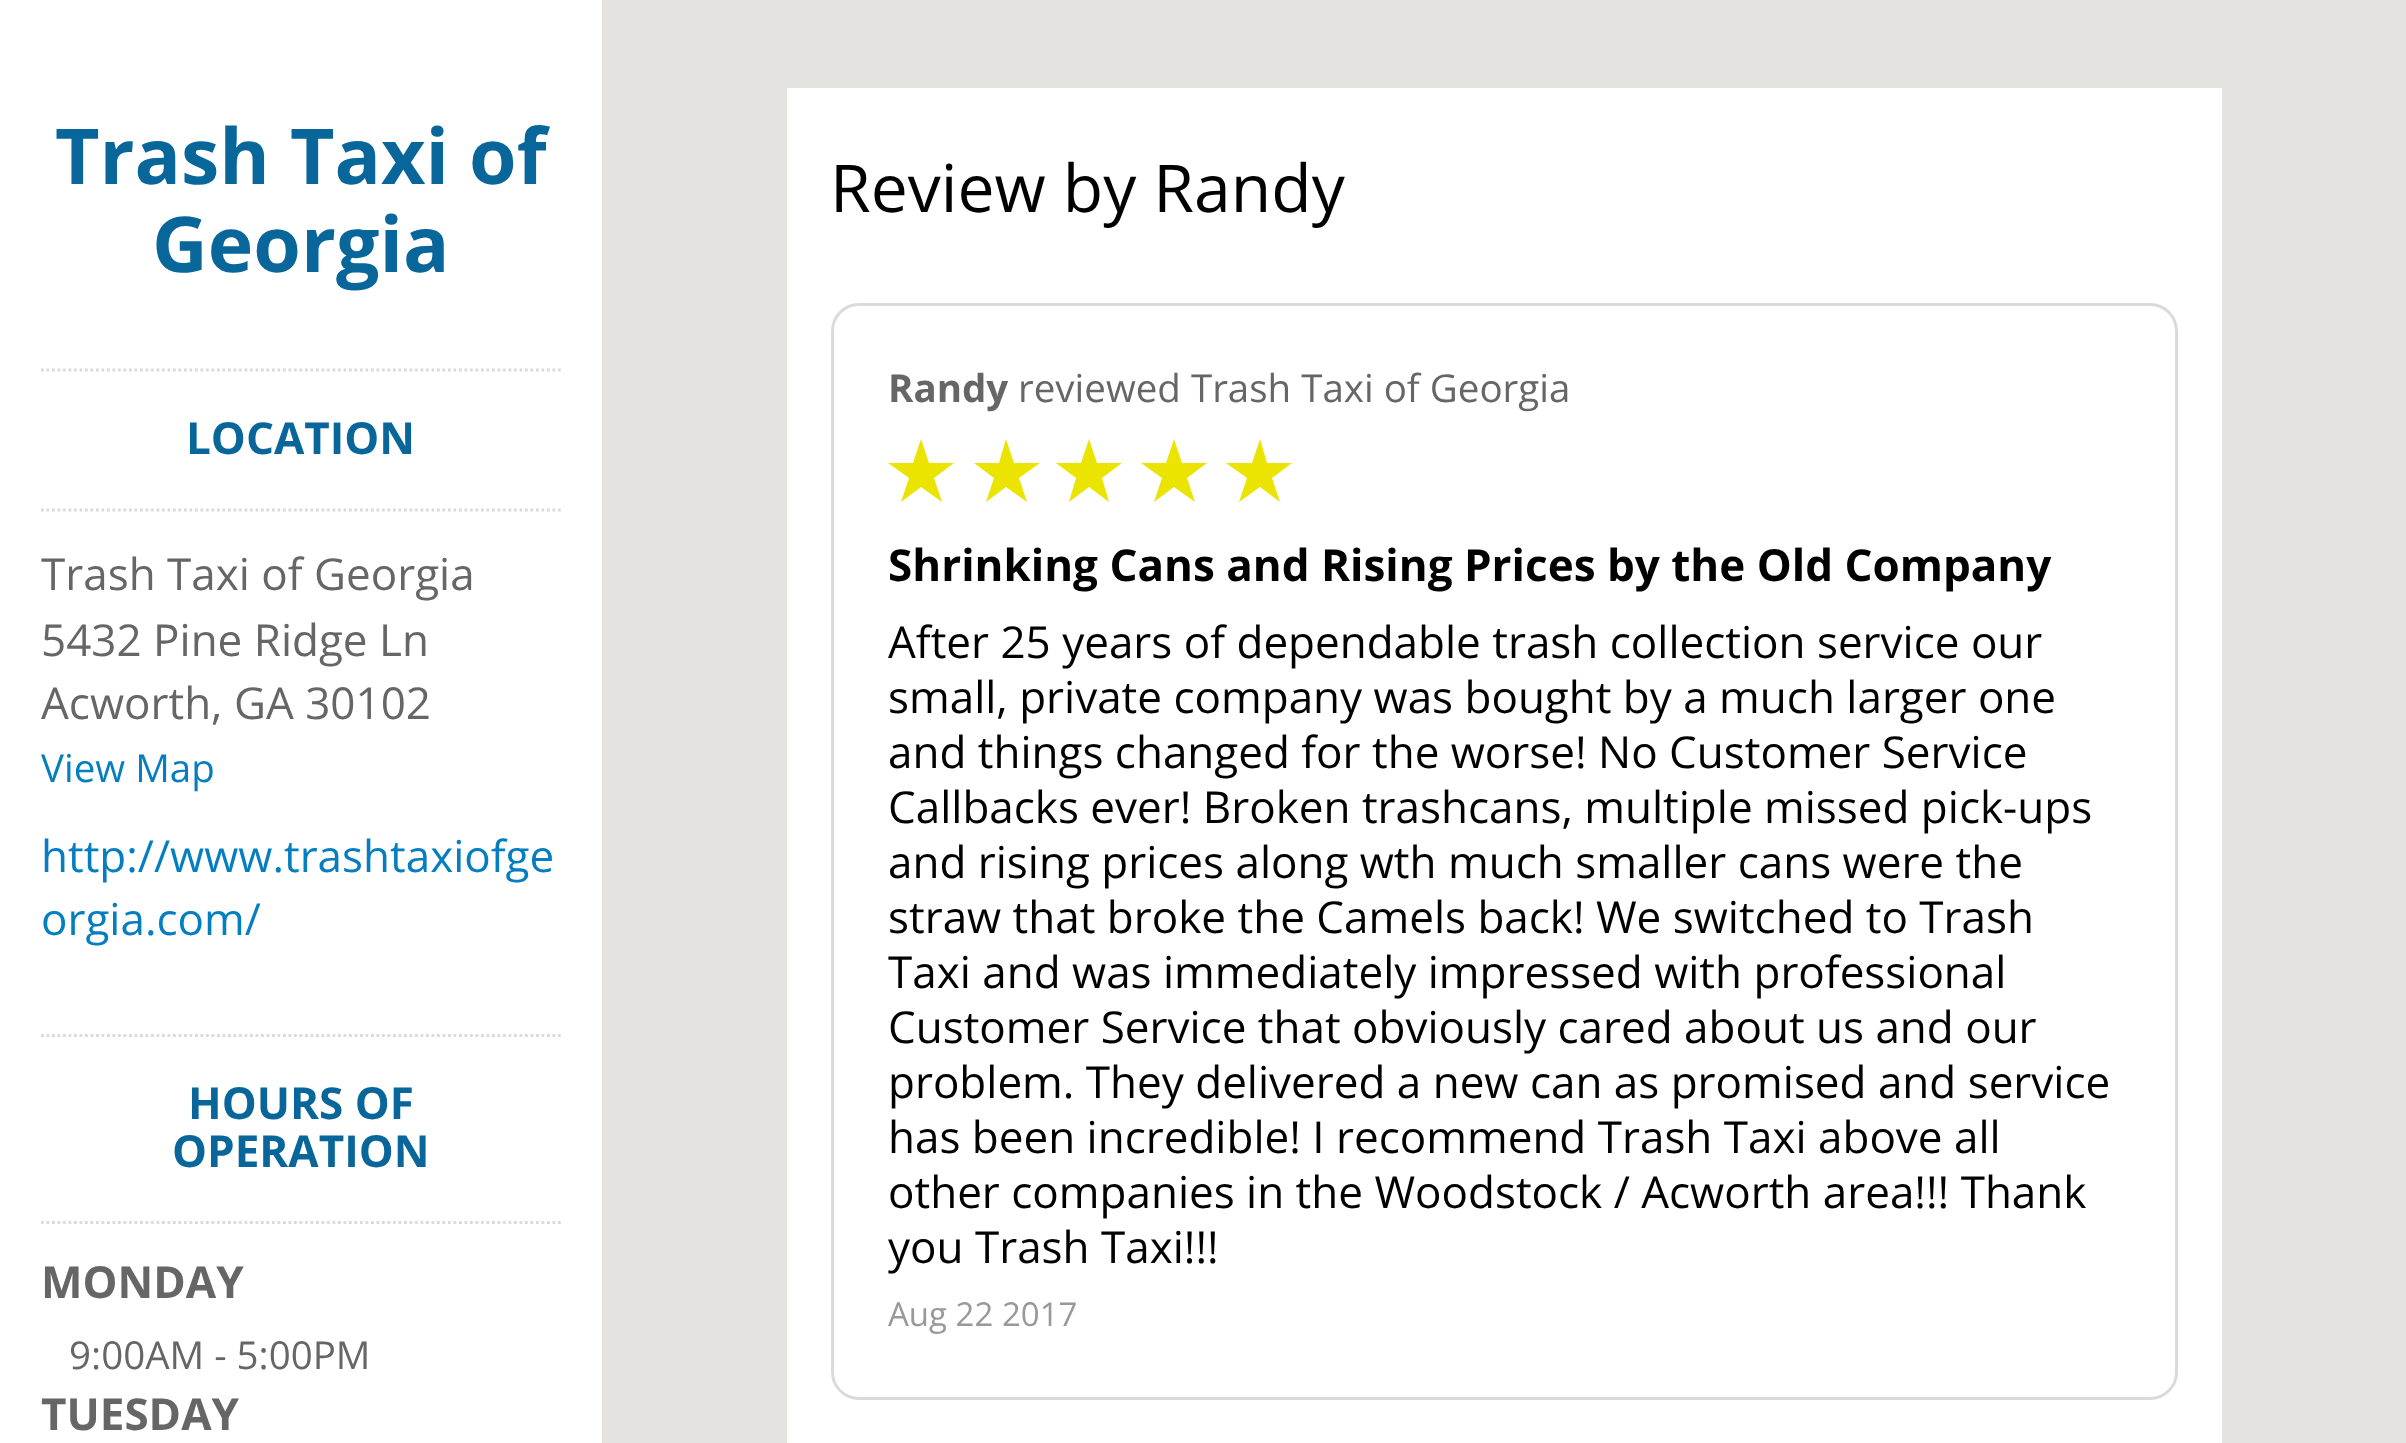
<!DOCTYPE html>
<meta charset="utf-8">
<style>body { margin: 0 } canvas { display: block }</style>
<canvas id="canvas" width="2406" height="1443"></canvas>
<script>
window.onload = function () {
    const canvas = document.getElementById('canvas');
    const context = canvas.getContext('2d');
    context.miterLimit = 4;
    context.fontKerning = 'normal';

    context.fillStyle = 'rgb(255, 255, 255)';
    context.fillRect(0, 0, 2406, 1443);
    context.beginPath();
    context.moveTo(41, 370);
    context.lineTo(561, 370);
    context.strokeStyle = 'rgb(218, 218, 218)';
    context.lineWidth = 2.8;
    context.setLineDash([2.75, 2.75]);
    context.stroke();
    context.beginPath();
    context.moveTo(41, 510);
    context.lineTo(561, 510);
    context.stroke();
    context.beginPath();
    context.moveTo(41, 1035.5);
    context.lineTo(561, 1035.5);
    context.stroke();
    context.beginPath();
    context.moveTo(41, 1222.5);
    context.lineTo(561, 1222.5);
    context.stroke();
    context.fillStyle = 'rgb(229, 227, 223)';
    context.fillRect(602, 0, 1804, 1443);
    context.fillStyle = 'rgb(255, 255, 255)';
    context.fillRect(787, 88, 1435, 1355);
    context.beginPath();
    context.roundRect(832.5, 304.5, 1344, 1094, 26.5);
    context.lineWidth = 3;
    context.setLineDash([]);
    context.stroke();
    context.fillStyle = 'rgb(234, 228, 0)';
    context.beginPath();
    context.moveTo(954, 463);
    context.lineTo(929, 463);
    context.lineTo(921, 439);
    context.lineTo(913, 463);
    context.lineTo(888, 463);
    context.lineTo(909, 478);
    context.lineTo(901, 502);
    context.lineTo(921, 487);
    context.lineTo(942, 502);
    context.lineTo(934, 478);
    context.closePath();
    context.fill();
    context.beginPath();
    context.moveTo(1040, 463);
    context.lineTo(1014, 463);
    context.lineTo(1006, 439);
    context.lineTo(999, 463);
    context.lineTo(974, 463);
    context.lineTo(994, 478);
    context.lineTo(986, 502);
    context.lineTo(1006, 487);
    context.lineTo(1027, 502);
    context.lineTo(1019, 478);
    context.closePath();
    context.fill();
    context.beginPath();
    context.moveTo(1122, 463);
    context.lineTo(1097, 463);
    context.lineTo(1089, 439);
    context.lineTo(1081, 463);
    context.lineTo(1056, 463);
    context.lineTo(1076, 478);
    context.lineTo(1069, 502);
    context.lineTo(1089, 487);
    context.lineTo(1109, 502);
    context.lineTo(1102, 478);
    context.closePath();
    context.fill();
    context.beginPath();
    context.moveTo(1207, 463);
    context.lineTo(1182, 463);
    context.lineTo(1174, 439);
    context.lineTo(1166, 463);
    context.lineTo(1141, 463);
    context.lineTo(1162, 478);
    context.lineTo(1154, 502);
    context.lineTo(1174, 487);
    context.lineTo(1195, 502);
    context.lineTo(1187, 478);
    context.closePath();
    context.fill();
    context.beginPath();
    context.moveTo(1292, 463);
    context.lineTo(1267, 463);
    context.lineTo(1260, 439);
    context.lineTo(1252, 463);
    context.lineTo(1226, 463);
    context.lineTo(1247, 478);
    context.lineTo(1239, 502);
    context.lineTo(1260, 487);
    context.lineTo(1280, 502);
    context.lineTo(1272, 478);
    context.closePath();
    context.fill();
    context.font = 'bold 77px Open Sans';
    context.fillStyle = 'rgb(9, 102, 154)';
    context.fillText('Trash Taxi of', 55, 184);
    context.fillText('Georgia', 152, 272);
    context.font = 'bold 44px Open Sans';
    context.fillText('LOCATION', 186, 454);
    context.font = '44px Open Sans';
    context.fillStyle = 'rgb(102, 102, 102)';
    context.fillText('Trash Taxi of Georgia', 41, 590);
    context.fillText('5432 Pine Ridge Ln', 41, 656);
    context.fillText('Acworth, GA 30102', 41, 719);
    context.font = '38.5px Open Sans';
    context.fillStyle = 'rgb(5, 126, 193)';
    context.fillText('View Map', 41, 782);
    context.font = '44px Open Sans';
    context.fillText('http://www.trashtaxiofge', 41, 872);
    context.fillText('orgia.com/', 41, 935);
    context.font = 'bold 44px Open Sans';
    context.fillStyle = 'rgb(9, 102, 154)';
    context.fillText('HOURS OF', 188, 1119);
    context.fillText('OPERATION', 172, 1167);
    context.fillStyle = 'rgb(102, 102, 102)';
    context.fillText('MONDAY', 41, 1298);
    context.font = '38.5px Open Sans';
    context.fillText('9:00AM - 5:00PM', 69, 1369);
    context.font = 'bold 44px Open Sans';
    context.fillText('TUESDAY', 41, 1430);
    context.font = '66px Open Sans';
    context.fillStyle = 'rgb(0, 0, 0)';
    context.fillText('Review by Randy', 830, 212);
    context.font = 'bold 38.5px Open Sans';
    context.fillStyle = 'rgb(102, 102, 102)';
    context.fillText('Randy', 888, 402);
    context.font = '38.5px Open Sans';
    context.fillText('reviewed Trash Taxi of Georgia', 1018, 402);
    context.font = 'bold 44px Open Sans';
    context.fillStyle = 'rgb(0, 0, 0)';
    context.fillText('Shrinking Cans and Rising Prices by the Old Company', 888, 581);
    context.font = '44px Open Sans';
    context.fillText('After 25 years of dependable trash collection service our', 888, 658);
    context.fillText('small, private company was bought by a much larger one', 888, 713);
    context.fillText('and things changed for the worse! No Customer Service', 888, 768);
    context.fillText('Callbacks ever! Broken trashcans, multiple missed pick-ups', 888, 823);
    context.fillText('and rising prices along wth much smaller cans were the', 888, 878);
    context.fillText('straw that broke the Camels back! We switched to Trash', 888, 933);
    context.fillText('Taxi and was immediately impressed with professional', 888, 988);
    context.fillText('Customer Service that obviously cared about us and our', 888, 1043);
    context.fillText('problem. They delivered a new can as promised and service', 888, 1098);
    context.fillText('has been incredible! I recommend Trash Taxi above all', 888, 1153);
    context.fillText('other companies in the Woodstock / Acworth area!!! Thank', 888, 1208);
    context.fillText('you Trash Taxi!!!', 888, 1263);
    context.font = '33px Open Sans';
    context.fillStyle = 'rgb(153, 153, 153)';
    context.fillText('Aug 22 2017', 888, 1326);
};
</script>
